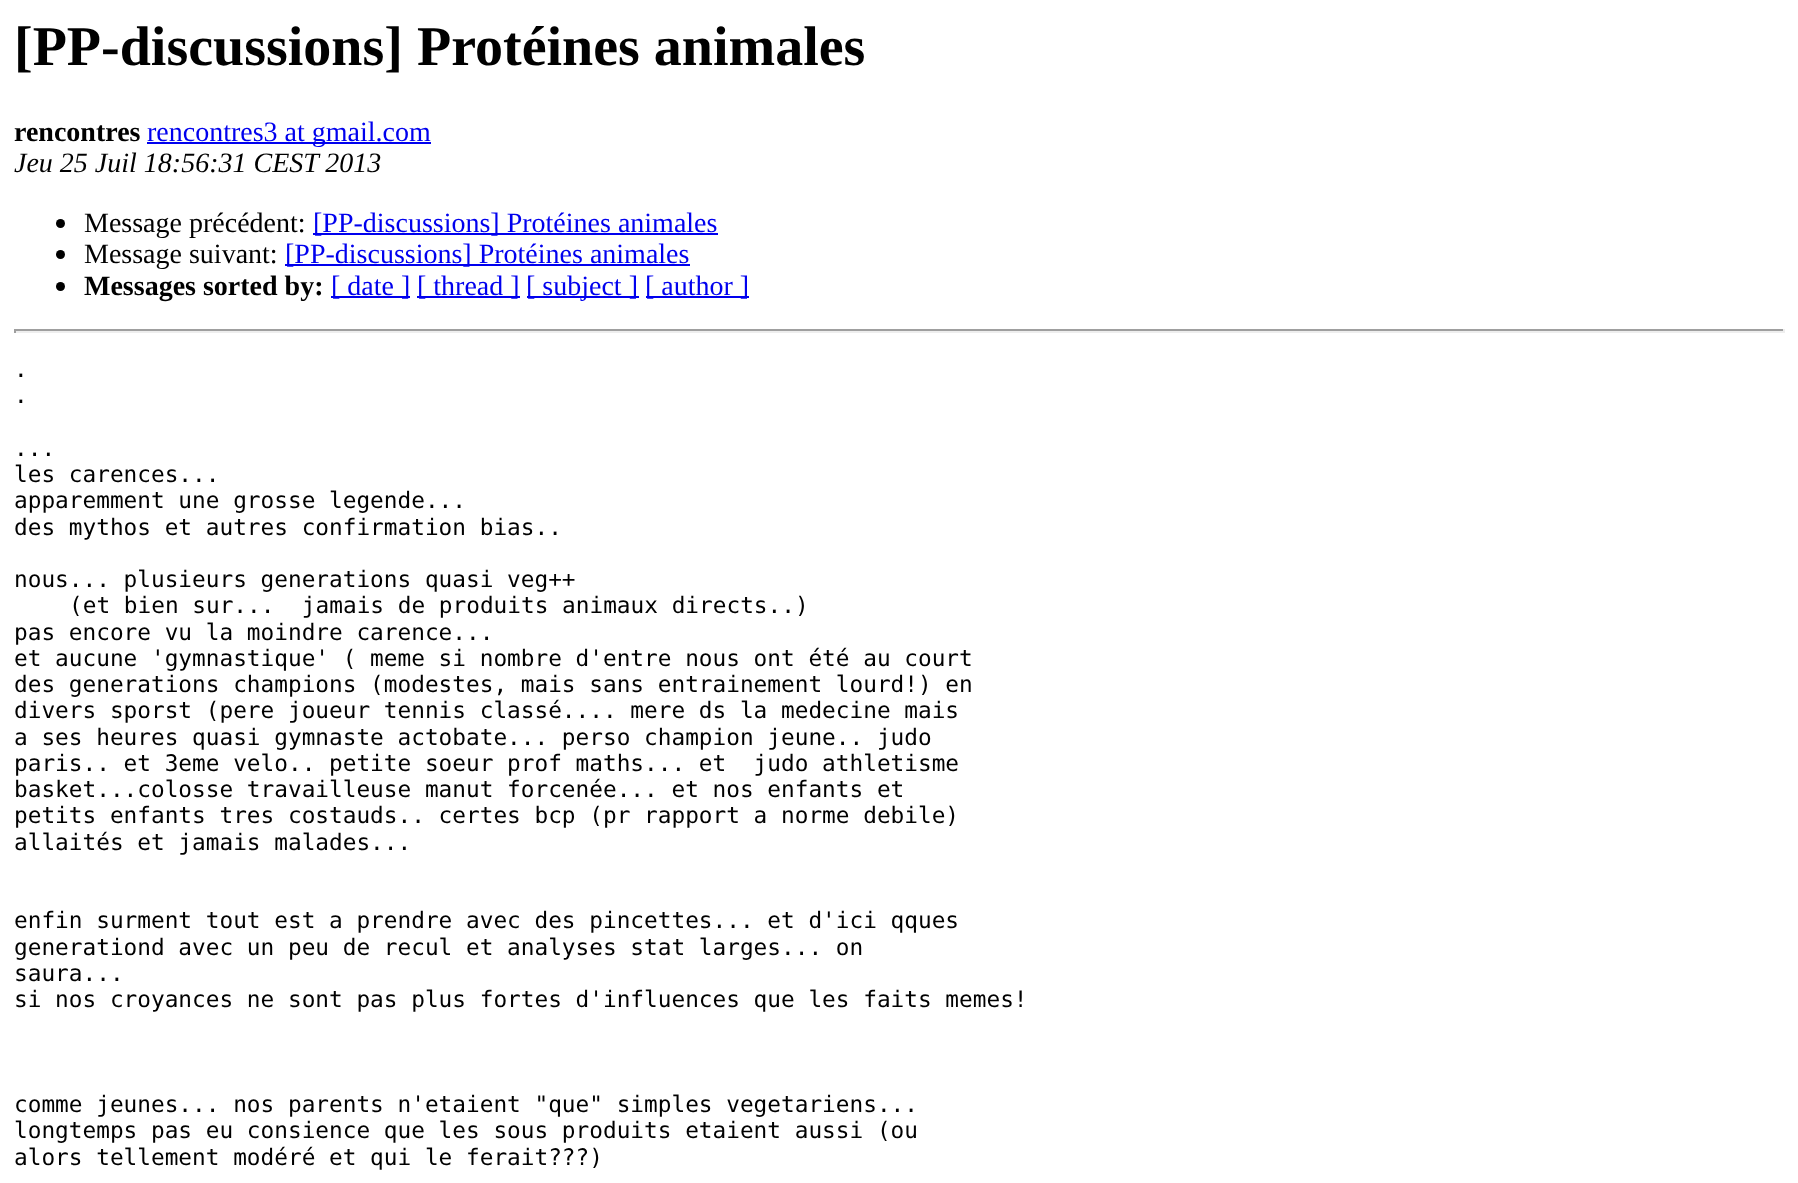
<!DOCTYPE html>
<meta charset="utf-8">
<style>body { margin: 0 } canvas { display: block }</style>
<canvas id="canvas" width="1798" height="1183"></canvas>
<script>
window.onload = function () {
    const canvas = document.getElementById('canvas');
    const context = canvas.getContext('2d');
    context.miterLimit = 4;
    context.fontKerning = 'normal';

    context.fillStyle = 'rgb(255, 255, 255)';
    context.fillRect(0, 0, 1798, 1183);
    context.fillStyle = 'rgb(0, 0, 238)';
    context.fillRect(147, 142, 284, 2);
    context.fillStyle = 'rgb(0, 0, 0)';
    context.beginPath();
    context.arc(60.5, 223.5, 4.5, 0, 2 * Math.PI);
    context.fill();
    context.fillStyle = 'rgb(0, 0, 238)';
    context.fillRect(313, 233, 405, 2);
    context.fillStyle = 'rgb(0, 0, 0)';
    context.beginPath();
    context.arc(60.5, 254.5, 4.5, 0, 2 * Math.PI);
    context.fill();
    context.fillStyle = 'rgb(0, 0, 238)';
    context.fillRect(285, 264, 405, 2);
    context.fillStyle = 'rgb(0, 0, 0)';
    context.beginPath();
    context.arc(60.5, 286.5, 4.5, 0, 2 * Math.PI);
    context.fill();
    context.fillStyle = 'rgb(0, 0, 238)';
    context.fillRect(331, 296, 79, 2);
    context.fillRect(417, 296, 103, 2);
    context.fillRect(527, 296, 112, 2);
    context.fillRect(646, 296, 103, 2);
    context.fillStyle = 'rgb(159, 159, 159)';
    context.fillRect(14, 329, 1771, 2);
    context.fillStyle = 'rgb(238, 238, 238)';
    context.fillRect(1783, 329, 2, 4);
    context.fillRect(14, 331, 1771, 2);
    context.fillStyle = 'rgb(159, 159, 159)';
    context.fillRect(14, 329, 2, 4);
    context.font = 'bold 56px Liberation Serif';
    context.fillStyle = 'rgb(0, 0, 0)';
    context.fillText('[PP-discussions] Protéines animales', 14, 65);
    context.font = 'bold 28px Liberation Serif';
    context.fillText('rencontres', 14, 141);
    context.font = '28px Liberation Serif';
    context.fillStyle = 'rgb(0, 0, 238)';
    context.fillText('rencontres3 at gmail.com', 147, 141);
    context.font = 'italic 28px Liberation Serif';
    context.fillStyle = 'rgb(0, 0, 0)';
    context.fillText('Jeu 25 Juil 18:56:31 CEST 2013', 14, 172);
    context.font = '28px Liberation Serif';
    context.fillText('Message précédent:', 84, 232);
    context.fillStyle = 'rgb(0, 0, 238)';
    context.fillText('[PP-discussions] Protéines animales', 313, 232);
    context.fillStyle = 'rgb(0, 0, 0)';
    context.fillText('Message suivant:', 84, 263);
    context.fillStyle = 'rgb(0, 0, 238)';
    context.fillText('[PP-discussions] Protéines animales', 285, 263);
    context.font = 'bold 28px Liberation Serif';
    context.fillStyle = 'rgb(0, 0, 0)';
    context.fillText('Messages sorted by:', 84, 295);
    context.font = '28px Liberation Serif';
    context.fillStyle = 'rgb(0, 0, 238)';
    context.fillText('[ date ]', 331, 295);
    context.fillText('[ thread ]', 417, 295);
    context.fillText('[ subject ]', 526, 295);
    context.fillText('[ author ]', 645, 295);
    context.font = '22.75px DejaVu Sans Mono';
    context.fillStyle = 'rgb(0, 0, 0)';
    context.fillText('.', 14, 377);
    context.fillText('.', 14, 403);
    context.fillText('...', 14, 456);
    context.fillText('les carences...', 14, 482);
    context.fillText('apparemment une grosse legende...', 14, 508);
    context.fillText('des mythos et autres confirmation bias..', 14, 535);
    context.fillText('nous... plusieurs generations quasi veg++', 14, 587);
    context.fillText('(et bien sur...  jamais de produits animaux directs..)', 69, 613);
    context.fillText('pas encore vu la moindre carence...', 14, 640);
    context.fillText('et aucune \'gymnastique\' ( meme si nombre d\'entre nous ont été au court', 14, 666);
    context.fillText('des generations champions (modestes, mais sans entrainement lourd!) en', 14, 692);
    context.fillText('divers sporst (pere joueur tennis classé.... mere ds la medecine mais', 14, 718);
    context.fillText('a ses heures quasi gymnaste actobate... perso champion jeune.. judo', 14, 745);
    context.fillText('paris.. et 3eme velo.. petite soeur prof maths... et  judo athletisme', 14, 771);
    context.fillText('basket...colosse travailleuse manut forcenée... et nos enfants et', 14, 797);
    context.fillText('petits enfants tres costauds.. certes bcp (pr rapport a norme debile)', 14, 823);
    context.fillText('allaités et jamais malades...', 14, 850);
    context.fillText('enfin surment tout est a prendre avec des pincettes... et d\'ici qques', 14, 928);
    context.fillText('generationd avec un peu de recul et analyses stat larges... on', 14, 955);
    context.fillText('saura...', 14, 981);
    context.fillText('si nos croyances ne sont pas plus fortes d\'influences que les faits memes!', 14, 1007);
    context.fillText('comme jeunes... nos parents n\'etaient "que" simples vegetariens...', 14, 1112);
    context.fillText('longtemps pas eu consience que les sous produits etaient aussi (ou', 14, 1138);
    context.fillText('alors tellement modéré et qui le ferait???)', 14, 1165);
};
</script>
